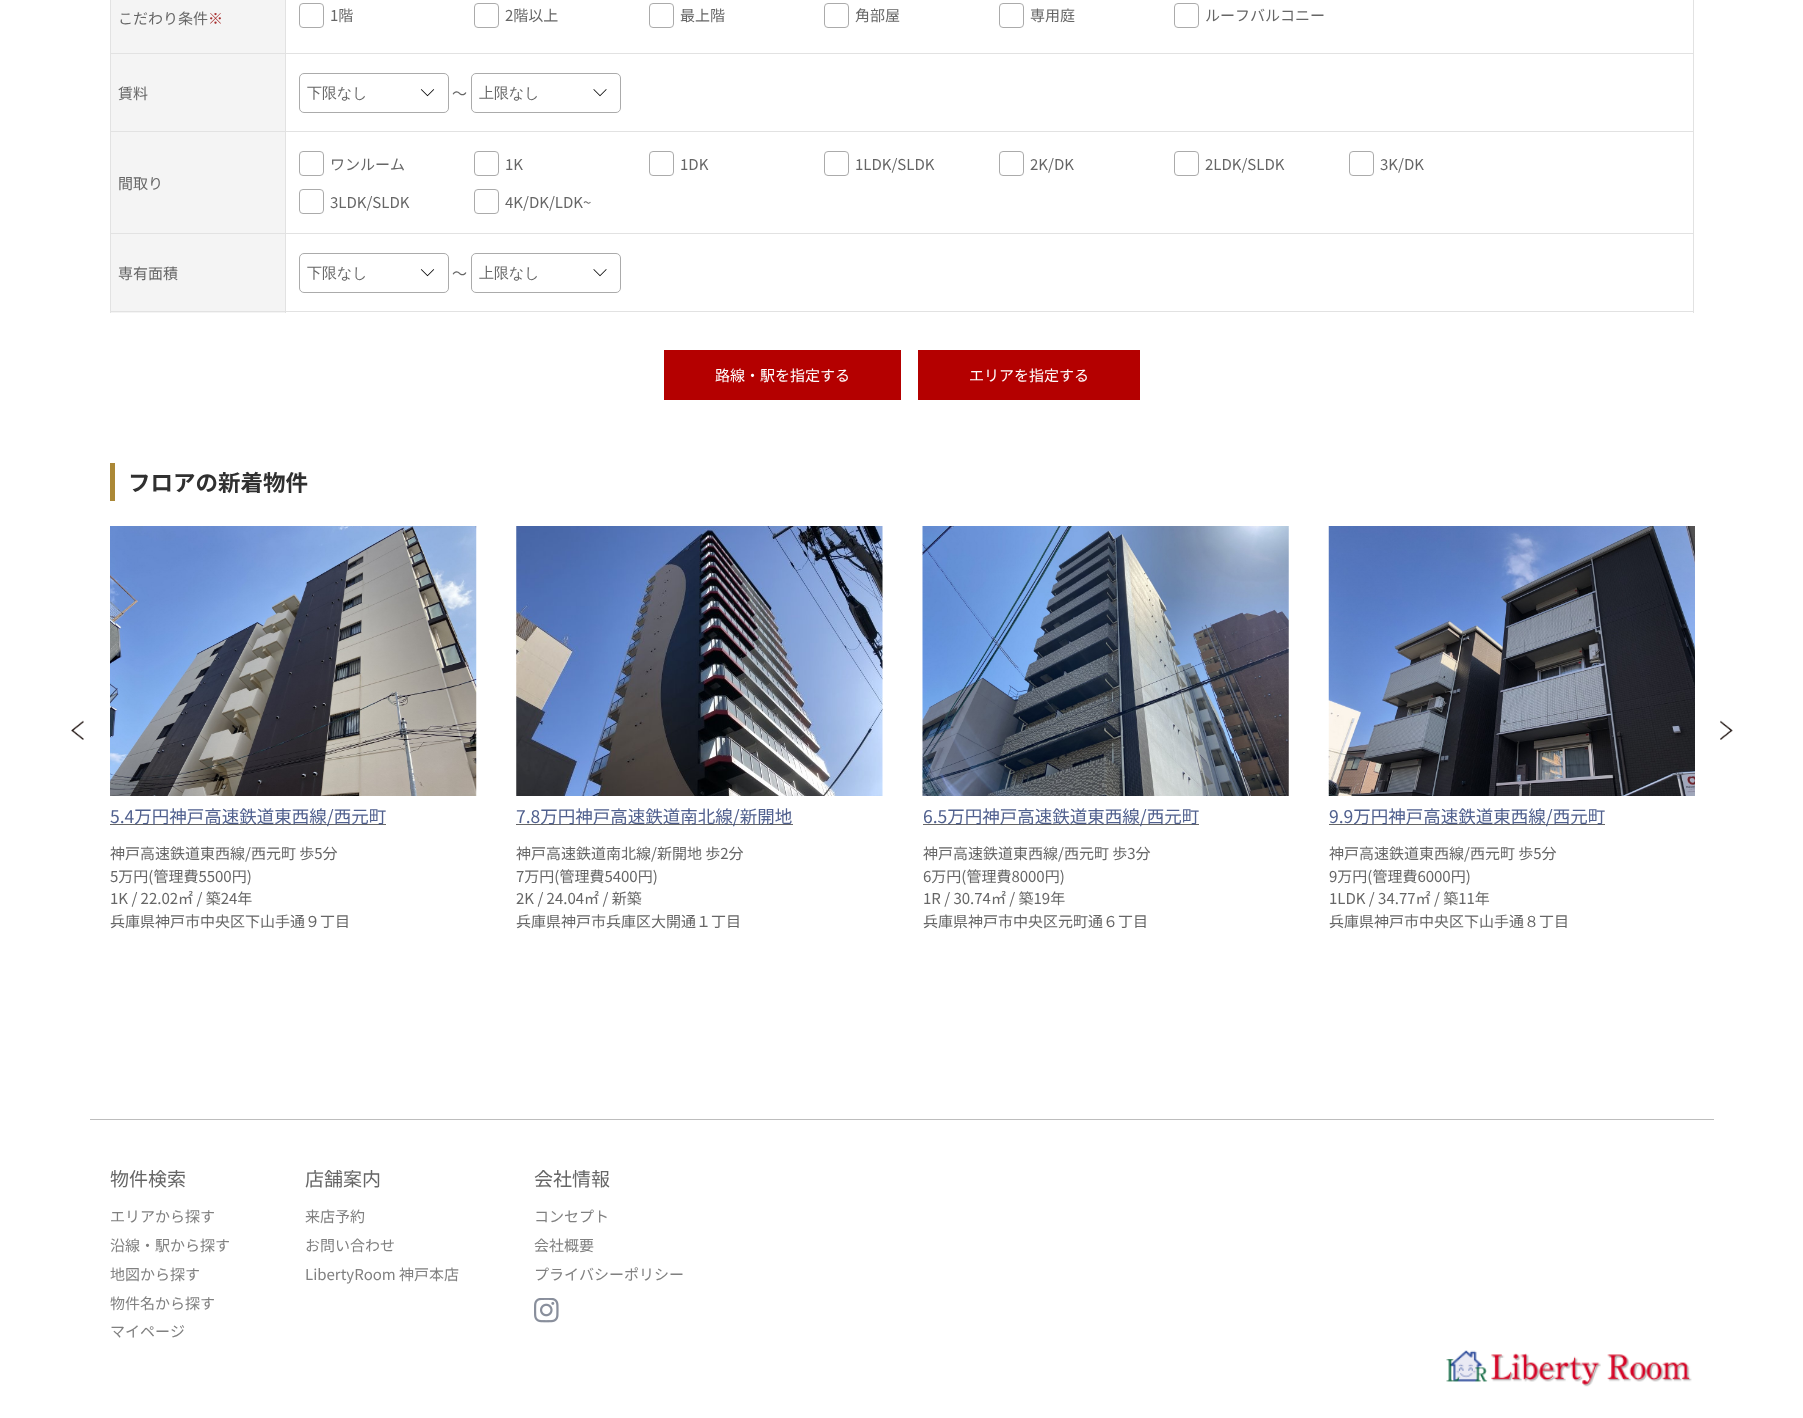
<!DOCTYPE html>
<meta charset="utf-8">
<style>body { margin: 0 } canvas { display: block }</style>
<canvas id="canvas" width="1803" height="1418"></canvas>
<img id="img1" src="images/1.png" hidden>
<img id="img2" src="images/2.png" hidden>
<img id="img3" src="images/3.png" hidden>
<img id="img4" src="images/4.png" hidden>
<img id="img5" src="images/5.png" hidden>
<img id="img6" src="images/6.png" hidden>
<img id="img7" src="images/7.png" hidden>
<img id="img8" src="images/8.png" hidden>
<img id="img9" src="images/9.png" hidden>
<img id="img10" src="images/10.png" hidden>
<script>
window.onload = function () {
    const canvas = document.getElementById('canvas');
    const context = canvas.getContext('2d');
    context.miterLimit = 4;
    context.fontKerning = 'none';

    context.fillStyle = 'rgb(255, 255, 255)';
    context.fillRect(0, 0, 1803, 1418);
    context.fillStyle = 'rgb(226, 226, 226)';
    context.fillRect(1693, 0, 1, 313);
    context.fillStyle = 'rgb(244, 244, 244)';
    context.fillRect(111, 234, 174, 79);
    context.fillStyle = 'rgb(226, 226, 226)';
    context.fillRect(110, 311, 1584, 1);
    context.fillRect(110, 0, 1, 313);
    context.fillStyle = 'rgb(244, 244, 244)';
    context.fillRect(111, 0, 174, 53);
    context.fillStyle = 'rgb(226, 226, 226)';
    context.fillRect(285, 53, 1409, 1);
    context.fillStyle = 'rgb(244, 244, 244)';
    context.fillRect(111, 54, 174, 179);
    context.fillStyle = 'rgb(226, 226, 226)';
    context.fillRect(285, 131, 1409, 1);
    context.fillRect(285, 233, 1409, 1);
    context.fillRect(285, 233, 1, 80);
    context.fillRect(110, 233, 176, 1);
    context.fillRect(285, 131, 1, 103);
    context.fillRect(110, 131, 176, 1);
    context.fillRect(285, 53, 1, 80);
    context.fillRect(110, 53, 176, 1);
    context.fillRect(285, 0, 1, 54);
    context.beginPath();
    context.roundRect(299.5, 3.5, 24, 24, 3.5);
    context.strokeStyle = 'rgb(171, 171, 171)';
    context.stroke();
    context.beginPath();
    context.roundRect(474.5, 3.5, 24, 24, 3.5);
    context.stroke();
    context.beginPath();
    context.roundRect(649.5, 3.5, 24, 24, 3.5);
    context.stroke();
    context.beginPath();
    context.roundRect(824.5, 3.5, 24, 24, 3.5);
    context.stroke();
    context.beginPath();
    context.roundRect(999.5, 3.5, 24, 24, 3.5);
    context.stroke();
    context.beginPath();
    context.roundRect(1174.5, 3.5, 24, 24, 3.5);
    context.stroke();
    context.drawImage(document.getElementById('img1'), 420, 89, 15, 8);
    context.beginPath();
    context.roundRect(299.5, 73.5, 149, 39, 4.5);
    context.stroke();
    context.drawImage(document.getElementById('img2'), 593, 89, 14, 8);
    context.beginPath();
    context.roundRect(471.5, 73.5, 149, 39, 4.5);
    context.stroke();
    context.beginPath();
    context.roundRect(299.5, 151.5, 24, 24, 3.5);
    context.stroke();
    context.beginPath();
    context.roundRect(474.5, 151.5, 24, 24, 3.5);
    context.stroke();
    context.beginPath();
    context.roundRect(649.5, 151.5, 24, 24, 3.5);
    context.stroke();
    context.beginPath();
    context.roundRect(824.5, 151.5, 24, 24, 3.5);
    context.stroke();
    context.beginPath();
    context.roundRect(999.5, 151.5, 24, 24, 3.5);
    context.stroke();
    context.beginPath();
    context.roundRect(1174.5, 151.5, 24, 24, 3.5);
    context.stroke();
    context.beginPath();
    context.roundRect(1349.5, 151.5, 24, 24, 3.5);
    context.stroke();
    context.beginPath();
    context.roundRect(299.5, 189.5, 24, 24, 3.5);
    context.stroke();
    context.beginPath();
    context.roundRect(474.5, 189.5, 24, 24, 3.5);
    context.stroke();
    context.drawImage(document.getElementById('img1'), 420, 269, 15, 8);
    context.beginPath();
    context.roundRect(299.5, 253.5, 149, 39, 4.5);
    context.stroke();
    context.drawImage(document.getElementById('img2'), 593, 269, 14, 8);
    context.beginPath();
    context.roundRect(471.5, 253.5, 149, 39, 4.5);
    context.stroke();
    context.fillStyle = 'rgb(180, 0, 0)';
    context.fillRect(664, 350, 237, 50);
    context.fillRect(918, 350, 222, 50);
    context.fillStyle = 'rgb(171, 136, 54)';
    context.fillRect(110, 463, 5, 38);
    context.drawImage(document.getElementById('img3'), 71, 720, 13, 20);
    context.drawImage(document.getElementById('img4'), 1720, 720, 13, 20);
    context.drawImage(document.getElementById('img5'), 110, 526, 367, 270);
    context.fillStyle = 'rgb(102, 102, 102)';
    context.fillRect(110, 824, 276, 1);
    context.drawImage(document.getElementById('img6'), 516, 526, 367, 270);
    context.fillRect(516, 824, 277, 1);
    context.drawImage(document.getElementById('img7'), 922, 526, 367, 270);
    context.fillRect(923, 824, 276, 1);
    context.drawImage(document.getElementById('img8'), 1328, 526, 367, 270);
    context.fillRect(1329, 824, 276, 1);
    context.fillStyle = 'rgb(189, 189, 189)';
    context.fillRect(90, 1119, 1624, 1);
    context.drawImage(document.getElementById('img9'), 534, 1298, 25, 25);
    context.drawImage(document.getElementById('img10'), 1446, 1350, 246, 37);
    context.font = '15px Noto Sans JP';
    context.fillStyle = 'rgb(102, 102, 102)';
    context.fillText('こだわり条件', 118, 24);
    context.fillStyle = 'rgb(167, 45, 45)';
    context.fillText('※', 208, 24);
    context.fillStyle = 'rgb(102, 102, 102)';
    context.fillText('1階', 330, 21);
    context.fillText('2階以上', 505, 21);
    context.fillText('最上階', 680, 21);
    context.fillText('角部屋', 855, 21);
    context.fillText('専用庭', 1030, 21);
    context.fillText('ルーフバルコニー', 1205, 21);
    context.fillText('賃料', 118, 99);
    context.font = '500 15px WenQuanYi Zen Hei';
    context.fillText('下限なし', 307, 98);
    context.font = '15px Noto Sans JP';
    context.fillText('～', 452, 99);
    context.font = '500 15px WenQuanYi Zen Hei';
    context.fillText('上限なし', 479, 98);
    context.font = '15px Noto Sans JP';
    context.fillText('間取り', 118, 189);
    context.fillText('ワンルーム', 330, 170);
    context.fillText('1K', 505, 170);
    context.fillText('1DK', 680, 170);
    context.fillText('1LDK/SLDK', 855, 170);
    context.fillText('2K/DK', 1030, 170);
    context.fillText('2LDK/SLDK', 1205, 170);
    context.fillText('3K/DK', 1380, 170);
    context.fillText('3LDK/SLDK', 330, 208);
    context.fillText('4K/DK/LDK~', 505, 208);
    context.fillText('専有面積', 118, 279);
    context.font = '500 15px WenQuanYi Zen Hei';
    context.fillText('下限なし', 307, 278);
    context.font = '15px Noto Sans JP';
    context.fillText('～', 452, 279);
    context.font = '500 15px WenQuanYi Zen Hei';
    context.fillText('上限なし', 479, 278);
    context.font = '15px Noto Sans JP';
    context.fillStyle = 'rgb(255, 255, 255)';
    context.fillText('路線・駅を指定する', 715, 381);
    context.fillText('エリアを指定する', 969, 381);
    context.font = 'bold 22.5px Noto Sans JP';
    context.fillStyle = 'rgb(48, 48, 48)';
    context.fillText('フロアの新着物件', 128, 491);
    context.font = '17.5px Noto Sans JP';
    context.fillStyle = 'rgb(80, 96, 142)';
    context.fillText('5.4万円神戸高速鉄道東西線/西元町', 110, 823);
    context.font = '15px Noto Sans JP';
    context.fillStyle = 'rgb(102, 102, 102)';
    context.fillText('神戸高速鉄道東西線/西元町 歩5分', 110, 859);
    context.fillText('5万円(管理費5500円)', 110, 882);
    context.fillText('1K / 22.02㎡ / 築24年', 110, 904);
    context.fillText('兵庫県神戸市中央区下山手通９丁目', 110, 927);
    context.font = '17.5px Noto Sans JP';
    context.fillStyle = 'rgb(80, 96, 142)';
    context.fillText('7.8万円神戸高速鉄道南北線/新開地', 516, 823);
    context.font = '15px Noto Sans JP';
    context.fillStyle = 'rgb(102, 102, 102)';
    context.fillText('神戸高速鉄道南北線/新開地 歩2分', 516, 859);
    context.fillText('7万円(管理費5400円)', 516, 882);
    context.fillText('2K / 24.04㎡ / 新築', 516, 904);
    context.fillText('兵庫県神戸市兵庫区大開通１丁目', 516, 927);
    context.font = '17.5px Noto Sans JP';
    context.fillStyle = 'rgb(80, 96, 142)';
    context.fillText('6.5万円神戸高速鉄道東西線/西元町', 923, 823);
    context.font = '15px Noto Sans JP';
    context.fillStyle = 'rgb(102, 102, 102)';
    context.fillText('神戸高速鉄道東西線/西元町 歩3分', 923, 859);
    context.fillText('6万円(管理費8000円)', 923, 882);
    context.fillText('1R / 30.74㎡ / 築19年', 923, 904);
    context.fillText('兵庫県神戸市中央区元町通６丁目', 923, 927);
    context.font = '17.5px Noto Sans JP';
    context.fillStyle = 'rgb(80, 96, 142)';
    context.fillText('9.9万円神戸高速鉄道東西線/西元町', 1329, 823);
    context.font = '15px Noto Sans JP';
    context.fillStyle = 'rgb(102, 102, 102)';
    context.fillText('神戸高速鉄道東西線/西元町 歩5分', 1329, 859);
    context.fillText('9万円(管理費6000円)', 1329, 882);
    context.fillText('1LDK / 34.77㎡ / 築11年', 1329, 904);
    context.fillText('兵庫県神戸市中央区下山手通８丁目', 1329, 927);
    context.font = '19px Noto Sans JP';
    context.fillText('物件検索', 110, 1186);
    context.font = '15px Noto Sans JP';
    context.fillStyle = 'rgb(128, 128, 128)';
    context.fillText('エリアから探す', 110, 1222);
    context.fillText('沿線・駅から探す', 110, 1251);
    context.fillText('地図から探す', 110, 1280);
    context.fillText('物件名から探す', 110, 1309);
    context.fillText('マイページ', 110, 1337);
    context.font = '19px Noto Sans JP';
    context.fillStyle = 'rgb(102, 102, 102)';
    context.fillText('店舗案内', 305, 1186);
    context.font = '15px Noto Sans JP';
    context.fillStyle = 'rgb(128, 128, 128)';
    context.fillText('来店予約', 305, 1222);
    context.fillText('お問い合わせ', 305, 1251);
    context.fillText('LibertyRoom 神戸本店', 305, 1280);
    context.font = '19px Noto Sans JP';
    context.fillStyle = 'rgb(102, 102, 102)';
    context.fillText('会社情報', 534, 1186);
    context.font = '15px Noto Sans JP';
    context.fillStyle = 'rgb(128, 128, 128)';
    context.fillText('コンセプト', 534, 1222);
    context.fillText('会社概要', 534, 1251);
    context.fillText('プライバシーポリシー', 534, 1280);
};
</script>
